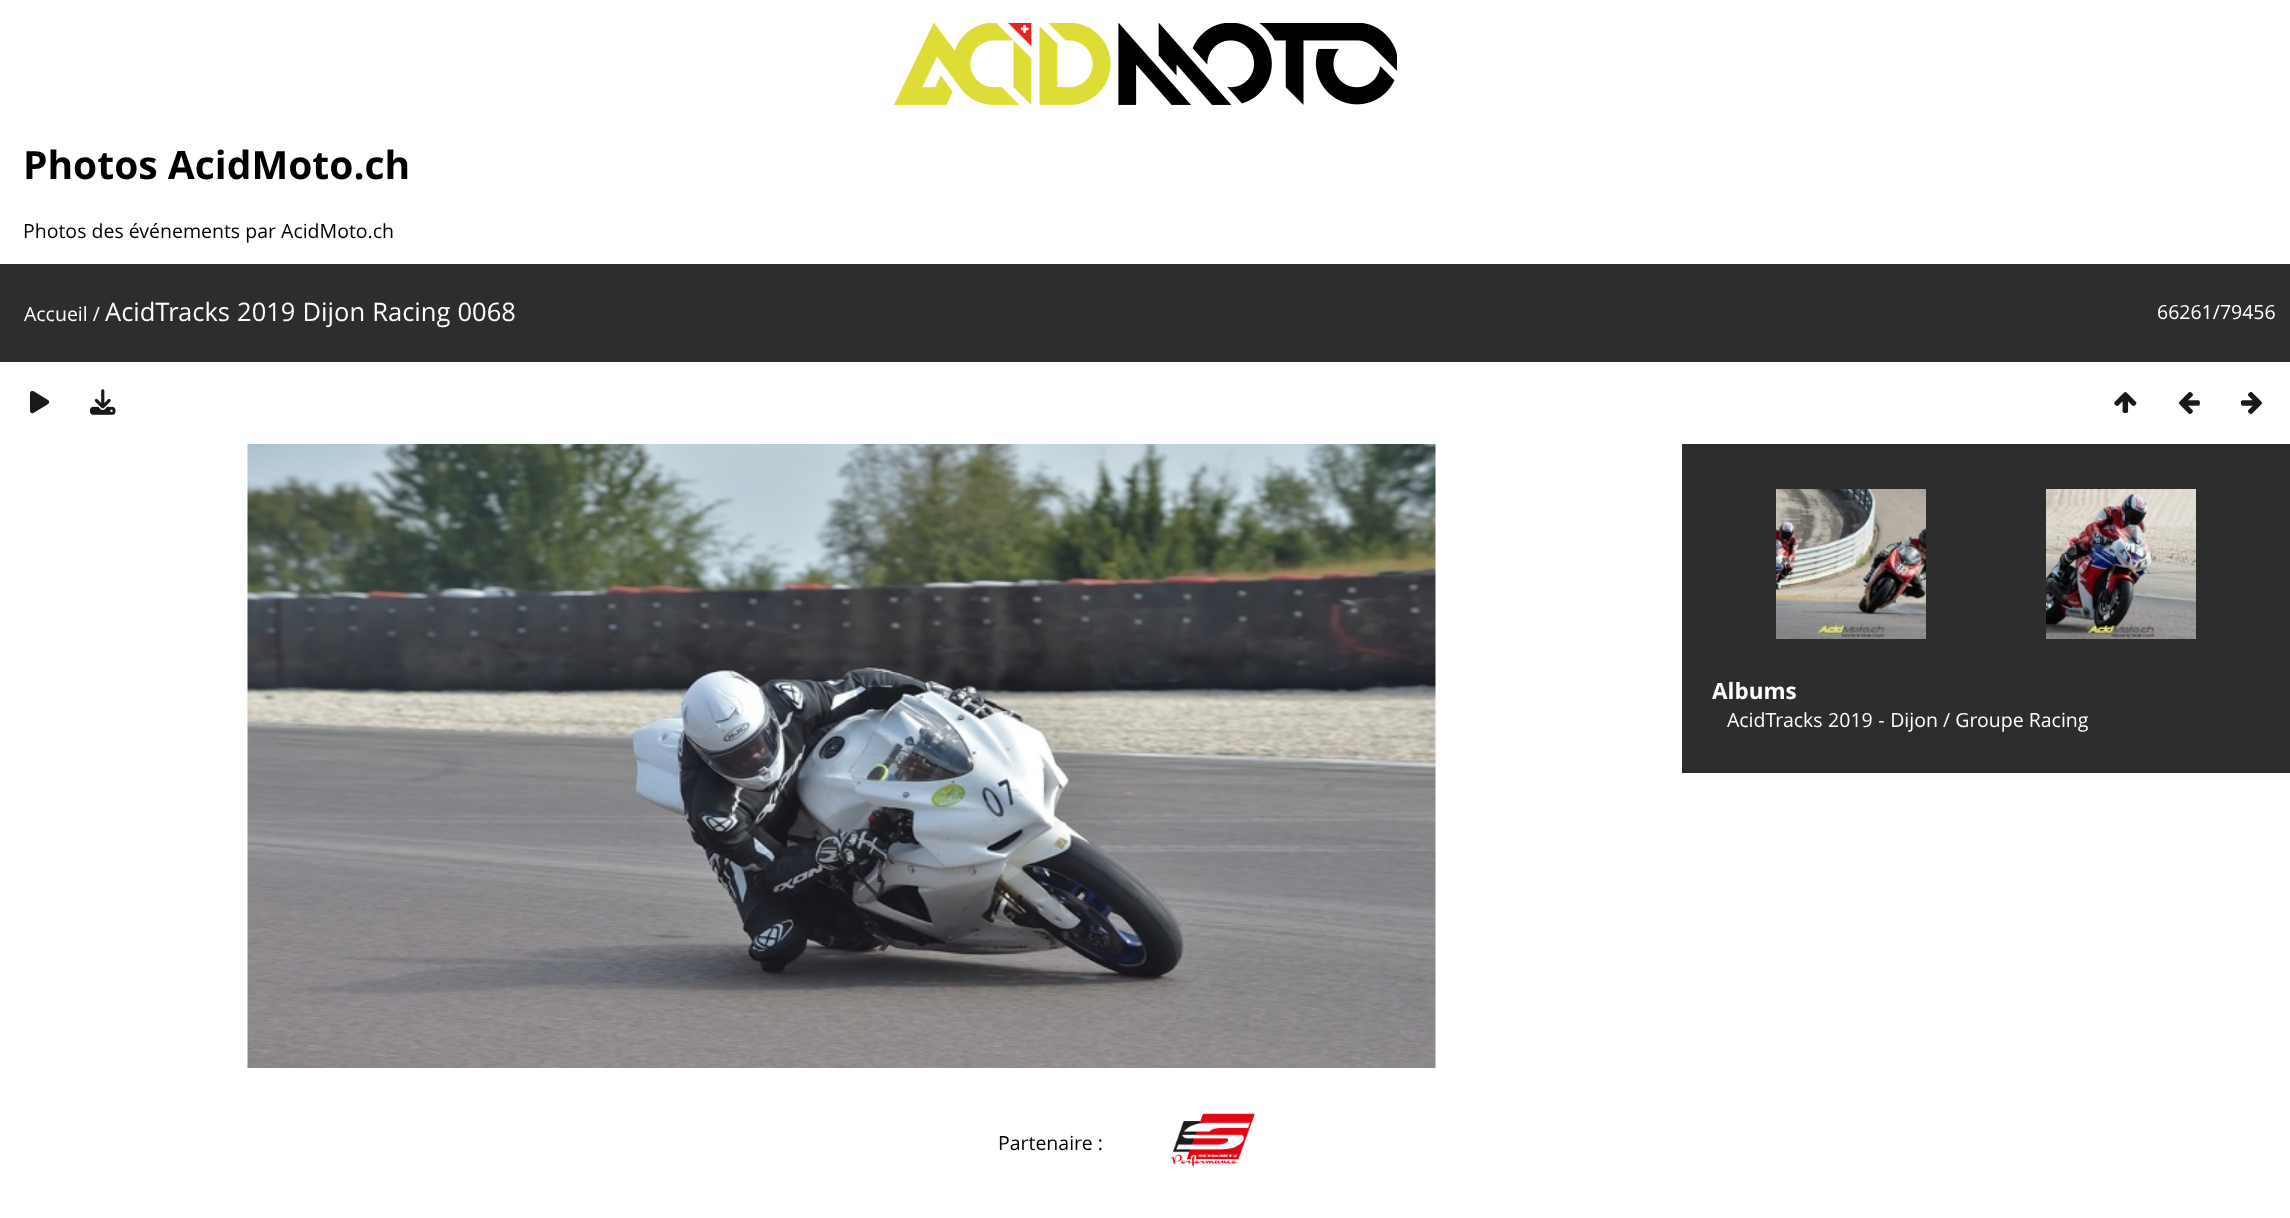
<!DOCTYPE html>
<meta charset="utf-8">
<style>body { margin: 0 } canvas { display: block }</style>
<canvas id="canvas" width="2290" height="1218"></canvas>
<img id="img1" src="images/1.png" hidden>
<img id="img2" src="images/2.png" hidden>
<img id="img3" src="images/3.png" hidden>
<img id="img4" src="images/4.png" hidden>
<img id="img5" src="images/5.png" hidden>
<img id="img6" src="images/6.png" hidden>
<img id="img7" src="images/7.png" hidden>
<img id="img8" src="images/8.png" hidden>
<img id="img9" src="images/9.png" hidden>
<img id="img10" src="images/10.png" hidden>
<script>
window.onload = function () {
    const canvas = document.getElementById('canvas');
    const context = canvas.getContext('2d');
    context.miterLimit = 4;
    context.fontKerning = 'normal';

    context.fillStyle = 'rgb(255, 255, 255)';
    context.fillRect(0, 0, 2290, 1218);
    context.drawImage(document.getElementById('img1'), 894, 23, 503, 82);
    context.fillStyle = 'rgb(45, 45, 45)';
    context.fillRect(0, 264, 2290, 98);
    context.drawImage(document.getElementById('img2'), 30, 390, 20, 24);
    context.drawImage(document.getElementById('img3'), 90, 389, 26, 26);
    context.drawImage(document.getElementById('img4'), 2114, 392, 23, 21);
    context.drawImage(document.getElementById('img5'), 2179, 392, 21, 22);
    context.drawImage(document.getElementById('img6'), 2241, 391, 21, 23);
    context.drawImage(document.getElementById('img7'), 247, 444, 1189, 624);
    context.fillRect(1682, 444, 608, 329);
    context.drawImage(document.getElementById('img8'), 1776, 489, 150, 150);
    context.drawImage(document.getElementById('img9'), 2046, 489, 150, 150);
    context.drawImage(document.getElementById('img10'), 1171, 1113, 84, 54);
    context.font = 'bold 39px Open Sans';
    context.fillStyle = 'rgb(0, 0, 0)';
    context.fillText('Photos AcidMoto.ch', 23, 179);
    context.font = '19.5px Open Sans';
    context.fillText('Photos des événements par AcidMoto.ch', 23, 238);
    context.fillStyle = 'rgb(255, 255, 255)';
    context.fillText('Accueil /', 24, 321);
    context.wordSpacing = '0.5px';
    context.font = '25.5px Open Sans';
    context.fillText('AcidTracks 2019 Dijon Racing 0068', 105, 321);
    context.wordSpacing = '0px';
    context.font = '19.5px Open Sans';
    context.fillText('66261/79456', 2157, 319);
    context.font = 'bold 22.5px Open Sans';
    context.fillText('Albums', 1712, 699);
    context.wordSpacing = '0.5px';
    context.font = '19.5px Open Sans';
    context.fillText('AcidTracks 2019 - Dijon', 1727, 727);
    context.wordSpacing = '0px';
    context.fillText('/ Groupe Racing', 1943, 727);
    context.fillStyle = 'rgb(0, 0, 0)';
    context.fillText('Partenaire :', 998, 1150);
};
</script>
